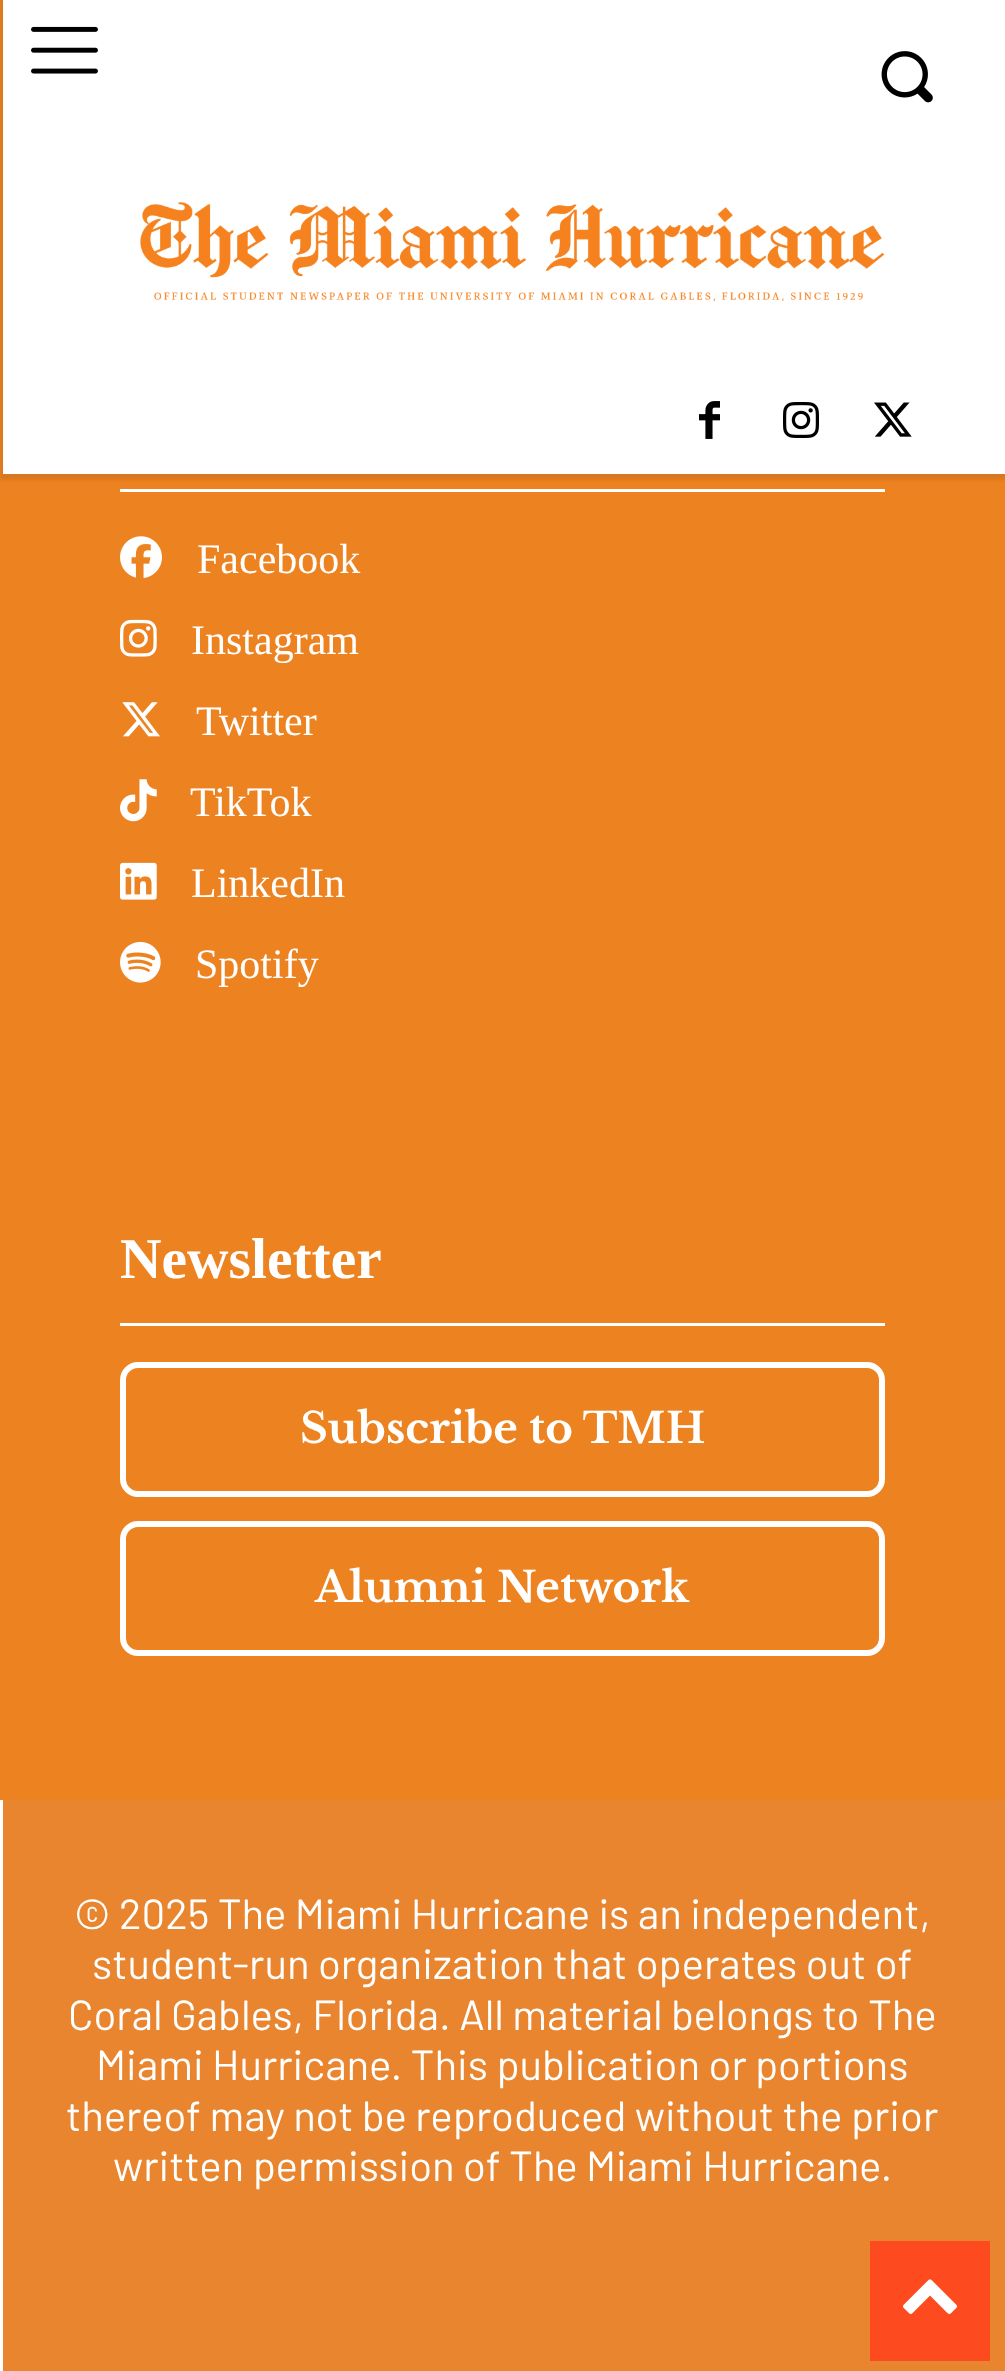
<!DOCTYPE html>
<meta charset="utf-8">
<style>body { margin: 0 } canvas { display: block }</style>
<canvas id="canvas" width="1005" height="2371"></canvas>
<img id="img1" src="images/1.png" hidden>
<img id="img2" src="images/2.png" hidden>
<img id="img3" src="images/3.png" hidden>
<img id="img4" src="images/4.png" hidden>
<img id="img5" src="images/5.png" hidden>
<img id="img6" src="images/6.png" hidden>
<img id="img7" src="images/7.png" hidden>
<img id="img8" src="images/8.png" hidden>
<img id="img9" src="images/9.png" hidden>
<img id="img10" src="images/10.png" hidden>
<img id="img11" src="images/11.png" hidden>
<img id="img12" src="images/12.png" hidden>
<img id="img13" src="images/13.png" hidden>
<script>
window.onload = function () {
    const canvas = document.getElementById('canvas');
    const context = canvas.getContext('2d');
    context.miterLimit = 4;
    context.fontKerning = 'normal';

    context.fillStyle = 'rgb(255, 255, 255)';
    context.fillRect(0, 0, 1005, 2371);
    context.fillStyle = 'rgb(237, 130, 33)';
    context.fillRect(0, 0, 1005, 1800);
    context.fillStyle = 'rgb(255, 255, 255)';
    context.fillRect(3, 0, 1002, 474);
    context.drawImage(document.getElementById('img1'), 31, 26, 67, 48);
    context.drawImage(document.getElementById('img2'), 881, 51, 52, 52);
    context.drawImage(document.getElementById('img3'), 140, 202, 745, 100);
    context.drawImage(document.getElementById('img4'), 699, 401, 21, 38);
    context.drawImage(document.getElementById('img5'), 783, 402, 36, 36);
    context.drawImage(document.getElementById('img6'), 874, 402, 38, 35);
    context.save();
    context.beginPath();
    context.moveTo(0, 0);
    context.lineTo(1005, 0);
    context.lineTo(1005, 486);
    context.lineTo(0, 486);
    context.closePath();
    context.moveTo(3, 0);
    context.lineTo(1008, 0);
    context.lineTo(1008, 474);
    context.lineTo(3, 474);
    context.closePath();
    context.clip('evenodd');
    context.fillStyle = 'rgba(0, 0, 0, 0.08)';
    context.filter = 'blur(1.5px)';
    context.beginPath();
    context.rect(0, 0, 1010, 480);
    context.fill();
    context.filter = 'none';
    context.restore();
    context.fillRect(120, 489, 765, 3);
    context.drawImage(document.getElementById('img7'), 120, 536, 42, 42);
    context.drawImage(document.getElementById('img8'), 120, 619, 37, 38);
    context.drawImage(document.getElementById('img9'), 122, 702, 38, 35);
    context.drawImage(document.getElementById('img10'), 120, 779, 37, 43);
    context.drawImage(document.getElementById('img11'), 120, 862, 37, 38);
    context.drawImage(document.getElementById('img12'), 120, 941, 41, 42);
    context.fillRect(120, 1323, 765, 3);
    context.beginPath();
    context.roundRect(123, 1365, 759, 129, 15);
    context.strokeStyle = 'rgb(255, 255, 255)';
    context.lineWidth = 6;
    context.stroke();
    context.beginPath();
    context.roundRect(123, 1524, 759, 129, 15);
    context.stroke();
    context.fillStyle = 'rgb(232, 133, 46)';
    context.fillRect(3, 1800, 1002, 571);
    context.fillStyle = 'rgb(254, 74, 31)';
    context.fillRect(870, 2241, 120, 120);
    context.drawImage(document.getElementById('img13'), 903, 2279, 54, 35);
    context.font = '42px Liberation Serif';
    context.fillStyle = 'rgb(255, 255, 255)';
    context.fillText('Facebook', 197, 573);
    context.fillText('Instagram', 191, 654);
    context.fillText('Twitter', 196, 735);
    context.fillText('TikTok', 190, 816);
    context.fillText('LinkedIn', 191, 897);
    context.fillText('Spotify', 195, 978);
    context.font = 'bold 57.5px Liberation Serif';
    context.fillText('Newsletter', 120, 1278);
    context.font = 'bold 42px Libre Baskerville';
    context.fillText('Subscribe to TMH', 300, 1443);
    context.fillText('Alumni Network', 315, 1602);
    context.font = '42px Barlow';
    context.fillText('© 2025 The Miami Hurricane is an independent,', 74, 1929);
    context.fillText('student-run organization that operates out of', 92, 1979);
    context.fillText('Coral Gables, Florida. All material belongs to The', 68, 2030);
    context.fillText('Miami Hurricane. This publication or portions', 96, 2080);
    context.fillText('thereof may not be reproduced without the prior', 66, 2131);
    context.fillText('written permission of The Miami Hurricane.', 113, 2181);
};
</script>
